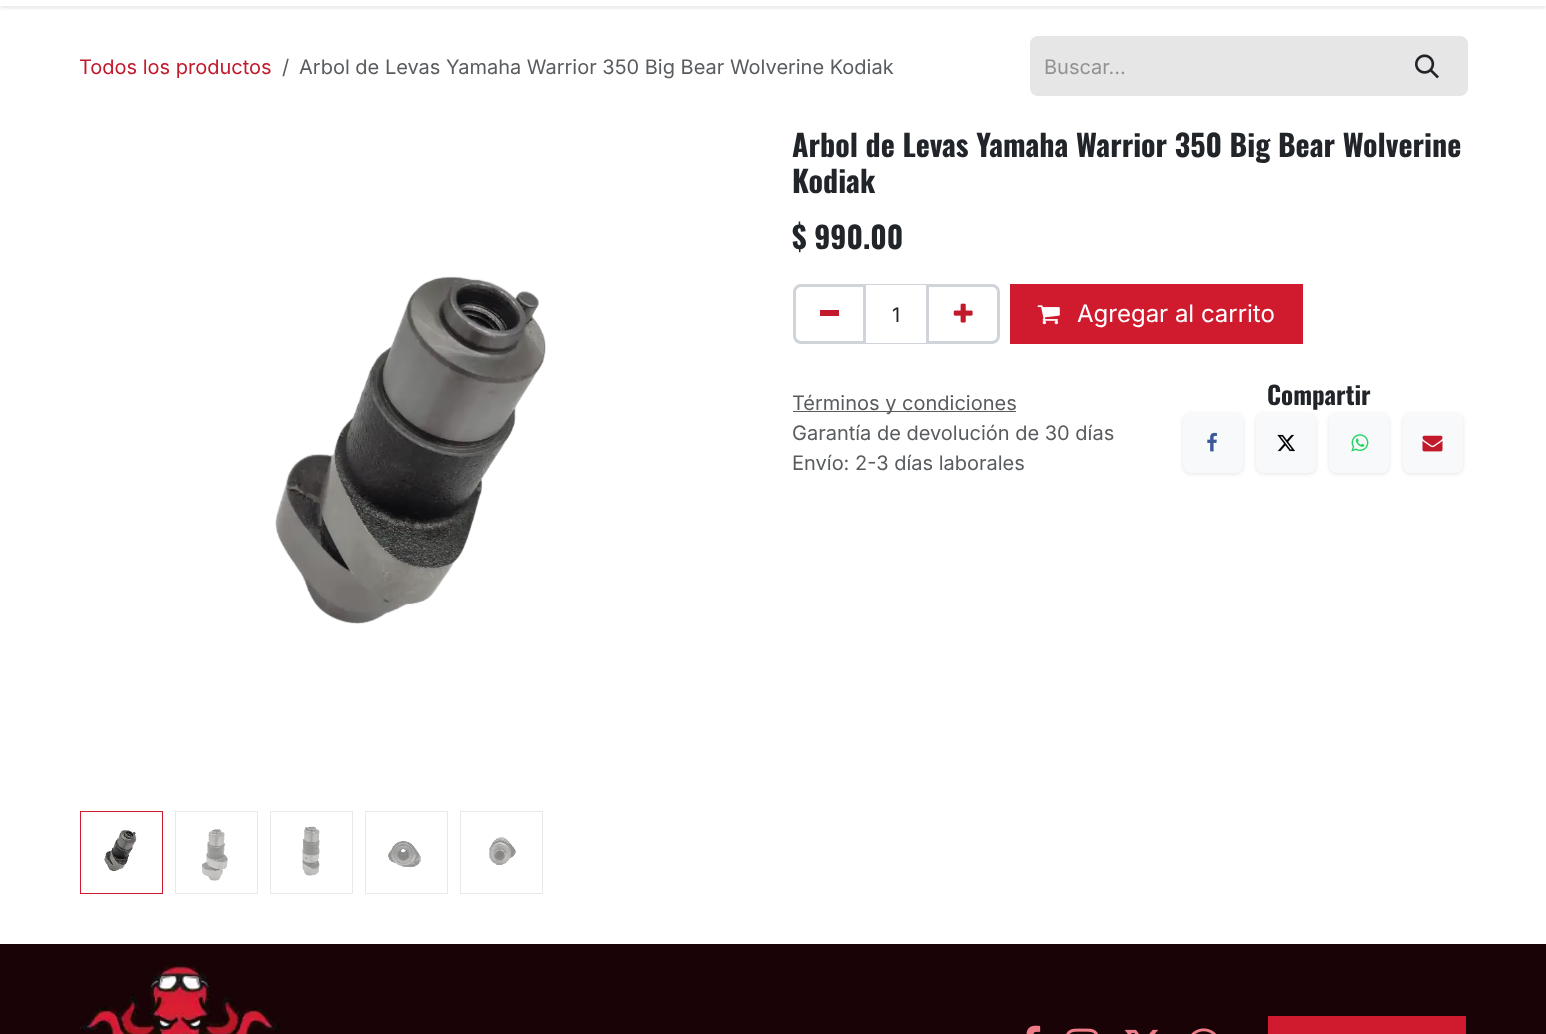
<!DOCTYPE html>
<meta charset="utf-8">
<style>body { margin: 0 } canvas { display: block }</style>
<canvas id="canvas" width="1546" height="1034"></canvas>
<img id="img1" src="images/1.png" hidden>
<img id="img2" src="images/2.png" hidden>
<img id="img3" src="images/3.png" hidden>
<img id="img4" src="images/4.png" hidden>
<img id="img5" src="images/5.png" hidden>
<img id="img6" src="images/6.png" hidden>
<img id="img7" src="images/7.png" hidden>
<img id="img8" src="images/8.png" hidden>
<img id="img9" src="images/9.png" hidden>
<img id="img10" src="images/10.png" hidden>
<img id="img11" src="images/11.png" hidden>
<img id="img12" src="images/12.png" hidden>
<img id="img13" src="images/13.png" hidden>
<img id="img14" src="images/14.png" hidden>
<img id="img15" src="images/15.png" hidden>
<img id="img16" src="images/16.png" hidden>
<img id="img17" src="images/17.png" hidden>
<img id="img18" src="images/18.png" hidden>
<script>
window.onload = function () {
    const canvas = document.getElementById('canvas');
    const context = canvas.getContext('2d');
    context.miterLimit = 4;
    context.fontKerning = 'normal';

    context.fillStyle = 'rgb(255, 255, 255)';
    context.fillRect(0, 0, 1546, 1034);
    context.save();
    context.beginPath();
    context.rect(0, 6, 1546, 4);
    context.clip();
    context.fillStyle = 'rgba(0, 0, 0, 0.1)';
    context.filter = 'blur(2px)';
    context.beginPath();
    context.rect(0, -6, 1546, 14);
    context.fill();
    context.filter = 'none';
    context.restore();
    context.fillStyle = 'rgb(230, 230, 230)';
    context.beginPath();
    context.roundRect(1030, 36, 359, 60, [8, 0, 0, 8]);
    context.fill();
    context.beginPath();
    context.roundRect(1389.5, 37.5, 77, 57, [0, 6.5, 6.5, 0]);
    context.fill();
    context.strokeStyle = 'rgb(230, 230, 230)';
    context.lineWidth = 3;
    context.stroke();
    context.drawImage(document.getElementById('img1'), 1415, 54, 24, 25);
    context.drawImage(document.getElementById('img2'), 275, 276, 271, 348);
    context.strokeStyle = 'rgb(208, 27, 46)';
    context.lineWidth = 1;
    context.strokeRect(80.5, 811.5, 82, 82);
    context.drawImage(document.getElementById('img3'), 104, 830, 33, 41);
    context.strokeStyle = 'rgb(231, 234, 237)';
    context.strokeRect(175.5, 811.5, 82, 82);
    context.drawImage(document.getElementById('img4'), 202, 828, 26, 53);
    context.strokeRect(270.5, 811.5, 82, 82);
    context.drawImage(document.getElementById('img5'), 302, 826, 18, 50);
    context.strokeRect(365.5, 811.5, 82, 82);
    context.drawImage(document.getElementById('img6'), 388, 841, 33, 27);
    context.strokeRect(460.5, 811.5, 82, 82);
    context.drawImage(document.getElementById('img7'), 489, 837, 27, 28);
    context.strokeStyle = 'rgb(206, 212, 218)';
    context.strokeRect(865.5, 284.5, 62, 59);
    context.beginPath();
    context.roundRect(794.5, 285.5, 70, 57, [6.5, 0, 0, 6.5]);
    context.lineWidth = 3;
    context.stroke();
    context.fillStyle = 'rgb(194, 25, 43)';
    context.fillRect(820, 310, 19, 6);
    context.beginPath();
    context.roundRect(927.5, 285.5, 71, 57, [0, 6.5, 6.5, 0]);
    context.stroke();
    context.drawImage(document.getElementById('img8'), 953, 303, 20, 20);
    context.fillStyle = 'rgb(208, 27, 46)';
    context.beginPath();
    context.rect(1011.5, 285.5, 290, 57);
    context.fill();
    context.strokeStyle = 'rgb(208, 27, 46)';
    context.stroke();
    context.drawImage(document.getElementById('img9'), 1037, 305, 23, 20);
    context.fillStyle = 'rgb(89, 92, 95)';
    context.fillRect(793, 411, 223, 1);
    context.fillStyle = 'rgba(0, 0, 0, 0.1)';
    context.filter = 'blur(2px)';
    context.beginPath();
    context.roundRect(1183, 414, 60, 60, 8);
    context.fill();
    context.filter = 'none';
    context.fillStyle = 'rgb(248, 249, 250)';
    context.beginPath();
    context.roundRect(1183, 413, 60, 60, 8);
    context.fill();
    context.drawImage(document.getElementById('img10'), 1207, 432, 10, 20);
    context.fillStyle = 'rgba(0, 0, 0, 0.1)';
    context.filter = 'blur(2px)';
    context.beginPath();
    context.roundRect(1256, 414, 60, 60, 8);
    context.fill();
    context.filter = 'none';
    context.fillStyle = 'rgb(248, 249, 250)';
    context.beginPath();
    context.roundRect(1256, 413, 60, 60, 8);
    context.fill();
    context.drawImage(document.getElementById('img11'), 1277, 434, 18, 18);
    context.fillStyle = 'rgba(0, 0, 0, 0.1)';
    context.filter = 'blur(2px)';
    context.beginPath();
    context.roundRect(1329, 414, 60, 60, 8);
    context.fill();
    context.filter = 'none';
    context.fillStyle = 'rgb(248, 249, 250)';
    context.beginPath();
    context.roundRect(1329, 413, 60, 60, 8);
    context.fill();
    context.drawImage(document.getElementById('img12'), 1351, 434, 18, 18);
    context.fillStyle = 'rgba(0, 0, 0, 0.1)';
    context.filter = 'blur(2px)';
    context.beginPath();
    context.roundRect(1403, 414, 60, 60, 8);
    context.fill();
    context.filter = 'none';
    context.fillStyle = 'rgb(248, 249, 250)';
    context.beginPath();
    context.roundRect(1403, 413, 60, 60, 8);
    context.fill();
    context.drawImage(document.getElementById('img13'), 1422, 435, 21, 17);
    context.fillStyle = 'rgb(26, 3, 6)';
    context.fillRect(0, 944, 1546, 90);
    context.drawImage(document.getElementById('img14'), 80, 963, 200, 71);
    context.drawImage(document.getElementById('img15'), 1026, 1025, 15, 9);
    context.drawImage(document.getElementById('img16'), 1066, 1028, 32, 6);
    context.drawImage(document.getElementById('img17'), 1124, 1029, 35, 5);
    context.drawImage(document.getElementById('img18'), 1191, 1028, 25, 6);
    context.fillStyle = 'rgb(208, 27, 46)';
    context.beginPath();
    context.rect(1269.5, 1017.5, 195, 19);
    context.fill();
    context.stroke();
    context.font = '20px Inter';
    context.fillStyle = 'rgb(194, 25, 43)';
    context.fillText('Todos los productos', 79, 74);
    context.fillStyle = 'rgb(89, 92, 95)';
    context.fillText('/', 282, 74);
    context.fillText('Arbol de Levas Yamaha Warrior 350 Big Bear Wolverine Kodiak', 299, 74);
    context.fillStyle = 'rgb(144, 146, 148)';
    context.fillText('Buscar…', 1044, 74);
    context.font = 'bold 30px Oswald';
    context.fillStyle = 'rgb(33, 37, 41)';
    context.fillText('Arbol de Levas Yamaha Warrior 350 Big Bear Wolverine', 792, 157);
    context.fillText('Kodiak', 792, 193);
    context.fillText('$ 990.00', 792, 249);
    context.font = '20px Inter';
    context.fillText('1', 892, 322);
    context.font = '24px Inter';
    context.fillStyle = 'rgb(255, 255, 255)';
    context.fillText('Agregar al carrito', 1077, 322);
    context.font = '20px Inter';
    context.fillStyle = 'rgb(89, 92, 95)';
    context.fillText('Términos y condiciones', 792, 410);
    context.fillText('Garantía de devolución de 30 días', 792, 440);
    context.fillText('Envío: 2-3 días laborales', 792, 470);
    context.font = 'bold 25px Oswald';
    context.fillStyle = 'rgb(33, 37, 41)';
    context.fillText('Compartir', 1267, 405);
};
</script>
